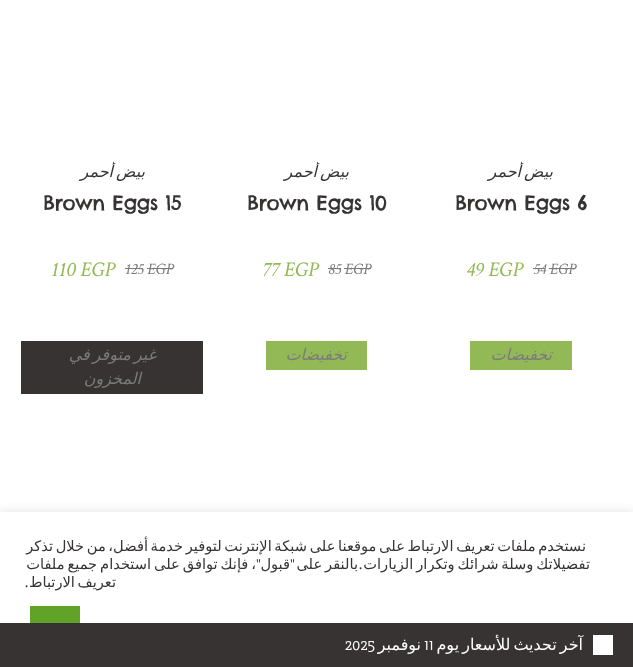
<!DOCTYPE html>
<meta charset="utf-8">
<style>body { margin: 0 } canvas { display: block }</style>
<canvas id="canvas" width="633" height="667"></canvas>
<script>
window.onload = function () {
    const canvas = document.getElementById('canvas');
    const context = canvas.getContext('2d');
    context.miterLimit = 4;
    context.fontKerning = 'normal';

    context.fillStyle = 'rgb(255, 255, 255)';
    context.fillRect(0, 0, 633, 667);
    context.fillStyle = 'rgb(123, 123, 123)';
    context.fillRect(533, 268, 12, 1);
    context.fillRect(549, 268, 26, 1);
    context.fillRect(328, 268, 13, 1);
    context.fillRect(344, 268, 27, 1);
    context.fillRect(125, 268, 18, 1);
    context.fillRect(147, 268, 26, 1);
    context.fillStyle = 'rgb(146, 185, 85)';
    context.fillRect(470, 341, 102, 29);
    context.fillRect(266, 341, 101, 29);
    context.fillStyle = 'rgb(55, 51, 51)';
    context.fillRect(21, 341, 182, 53);
    context.fillStyle = 'rgba(172, 171, 171, 0.3)';
    context.filter = 'blur(5px)';
    context.beginPath();
    context.rect(0, 511, 633, 155);
    context.fill();
    context.filter = 'none';
    context.fillStyle = 'rgb(255, 255, 255)';
    context.fillRect(0, 512, 633, 111);
    context.fillStyle = 'rgb(97, 162, 41)';
    context.fillRect(30, 606, 50, 17);
    context.fillStyle = 'rgb(55, 51, 51)';
    context.fillRect(0, 623, 633, 44);
    context.fillStyle = 'rgb(255, 255, 255)';
    context.fillRect(593, 635, 20, 20);
    context.save();
    context.beginPath();
    context.rect(450, 162, 142, 22);
    context.clip();
    context.wordSpacing = '-2px';
    context.direction = 'rtl';
    context.font = 'italic 16px DejaVu Sans';
    context.fillStyle = 'rgb(55, 51, 51)';
    context.fillText('بيض أحمر', 553, 177);
    context.restore();
    context.letterSpacing = '-0.5px';
    context.font = '20px Chelsea Market';
    context.fillStyle = 'rgb(55, 51, 51)';
    context.fillText('Brown Eggs 6', 455, 210);
    context.letterSpacing = '0px';
    context.font = 'italic 16px Crimson Text';
    context.fillStyle = 'rgb(123, 123, 123)';
    context.fillText('54 EGP', 533, 274);
    context.font = 'italic 21px Crimson Text';
    context.fillStyle = 'rgb(146, 185, 85)';
    context.fillText('49 EGP', 466, 276);
    context.save();
    context.beginPath();
    context.rect(246, 162, 141, 22);
    context.clip();
    context.wordSpacing = '-2px';
    context.direction = 'rtl';
    context.font = 'italic 16px DejaVu Sans';
    context.fillStyle = 'rgb(55, 51, 51)';
    context.fillText('بيض أحمر', 349, 177);
    context.restore();
    context.letterSpacing = '-0.5px';
    context.font = '20px Chelsea Market';
    context.fillStyle = 'rgb(55, 51, 51)';
    context.fillText('Brown Eggs 10', 247, 210);
    context.letterSpacing = '0px';
    context.font = 'italic 16px Crimson Text';
    context.fillStyle = 'rgb(123, 123, 123)';
    context.fillText('85 EGP', 328, 274);
    context.font = 'italic 21px Crimson Text';
    context.fillStyle = 'rgb(146, 185, 85)';
    context.fillText('77 EGP', 262, 276);
    context.save();
    context.beginPath();
    context.rect(41, 162, 142, 22);
    context.clip();
    context.wordSpacing = '-2px';
    context.direction = 'rtl';
    context.font = 'italic 16px DejaVu Sans';
    context.fillStyle = 'rgb(55, 51, 51)';
    context.fillText('بيض أحمر', 145, 177);
    context.restore();
    context.letterSpacing = '-0.5px';
    context.font = '20px Chelsea Market';
    context.fillStyle = 'rgb(55, 51, 51)';
    context.fillText('Brown Eggs 15', 43, 210);
    context.letterSpacing = '0px';
    context.font = 'italic 16px Crimson Text';
    context.fillStyle = 'rgb(123, 123, 123)';
    context.fillText('125 EGP', 125, 274);
    context.font = 'italic 21px Crimson Text';
    context.fillStyle = 'rgb(146, 185, 85)';
    context.fillText('110 EGP', 51, 276);
    context.direction = 'rtl';
    context.font = 'italic 16px DejaVu Sans';
    context.fillStyle = 'rgb(123, 123, 123)';
    context.fillText('تخفيضات', 552, 360);
    context.fillText('تخفيضات', 347, 360);
    context.wordSpacing = '-2px';
    context.fillText('غير متوفر في', 156, 360);
    context.wordSpacing = '0px';
    context.fillText('المخزون', 141, 384);
    context.wordSpacing = '-2px';
    context.font = '14.65px DejaVu Sans';
    context.fillStyle = 'rgb(55, 51, 51)';
    context.fillText('نستخدم ملفات تعريف الارتباط على موقعنا على شبكة الإنترنت لتوفير خدمة أفضل، من خلال تذكر', 586, 551);
    context.wordSpacing = '-1.75px';
    context.fillText('تفضيلاتك وسلة شرائك وتكرار الزيارات', 590, 569);
    context.fillText('بالنقر على', 358, 569);
    context.wordSpacing = '0px';
    context.font = '14.65px "Slabo 27px"';
    context.fillText('"', 295, 569);
    context.font = '14.65px DejaVu Sans';
    context.fillText('قبول', 290, 569);
    context.font = '14.65px "Slabo 27px"';
    context.fillText('"', 261, 569);
    context.wordSpacing = '-1.75px';
    context.font = '14.65px DejaVu Sans';
    context.fillText('، فإنك توافق على استخدام جميع ملفات', 256, 569);
    context.wordSpacing = '0px';
    context.font = '14.65px "Slabo 27px"';
    context.fillText('.', 362, 569);
    context.wordSpacing = '-2px';
    context.font = '14.65px DejaVu Sans';
    context.fillText('تعريف الارتباط', 116, 587);
    context.wordSpacing = '0px';
    context.font = '14.65px "Slabo 27px"';
    context.fillText('.', 28, 587);
    context.wordSpacing = '-2px';
    context.font = '16px DejaVu Sans';
    context.fillStyle = 'rgb(255, 255, 255)';
    context.fillText('آخر تحديث للأسعار يوم', 583, 650);
    context.wordSpacing = '0px';
    context.direction = 'ltr';
    context.font = '16px "Slabo 27px"';
    context.fillText('11', 424, 650);
    context.direction = 'rtl';
    context.font = '16px DejaVu Sans';
    context.fillText('نوفمبر', 421, 650);
    context.direction = 'ltr';
    context.font = '16px "Slabo 27px"';
    context.fillText('2025', 345, 650);
};
</script>
